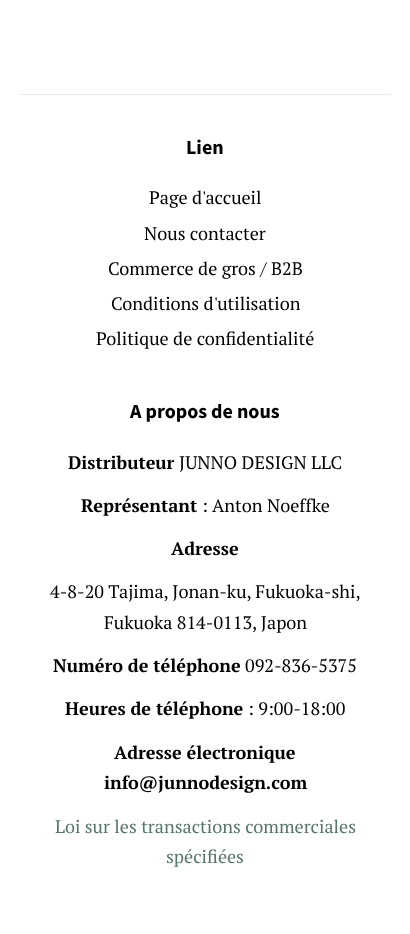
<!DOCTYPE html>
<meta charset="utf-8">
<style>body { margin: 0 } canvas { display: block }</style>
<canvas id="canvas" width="410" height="934"></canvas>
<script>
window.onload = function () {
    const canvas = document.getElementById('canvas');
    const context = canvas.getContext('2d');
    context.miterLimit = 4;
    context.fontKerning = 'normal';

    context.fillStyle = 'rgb(255, 255, 255)';
    context.fillRect(0, 0, 410, 934);
    context.fillStyle = 'rgb(235, 235, 235)';
    context.fillRect(19, 94, 372, 1);
    context.font = 'bold 20px Source Sans Pro';
    context.fillStyle = 'rgb(0, 0, 0)';
    context.fillText('Lien', 186, 154);
    context.font = '18.1px PT Serif';
    context.fillText('Page d\'accueil', 149, 204);
    context.fillText('Nous contacter', 144, 240);
    context.fillText('Commerce de gros / B2B', 108, 275);
    context.fillText('Conditions d\'utilisation', 111, 310);
    context.fillText('Politique de confidentialité', 96, 345);
    context.font = 'bold 20px Source Sans Pro';
    context.fillText('A propos de nous', 130, 418);
    context.font = 'bold 18.1px PT Serif';
    context.fillText('Distributeur', 68, 469);
    context.font = '18.1px PT Serif';
    context.fillText('JUNNO DESIGN LLC', 179, 469);
    context.font = 'bold 18.1px PT Serif';
    context.fillText('Représentant', 81, 512);
    context.font = '18.1px PT Serif';
    context.fillText(': Anton Noeffke', 202, 512);
    context.font = 'bold 18.1px PT Serif';
    context.fillText('Adresse', 171, 555);
    context.font = '18.1px PT Serif';
    context.fillText('4-8-20 Tajima, Jonan-ku, Fukuoka-shi,', 50, 598);
    context.fillText('Fukuoka 814-0113, Japon', 104, 629);
    context.font = 'bold 18.1px PT Serif';
    context.fillText('Numéro de téléphone', 53, 672);
    context.font = '18.1px PT Serif';
    context.fillText('092-836-5375', 245, 672);
    context.font = 'bold 18.1px PT Serif';
    context.fillText('Heures de téléphone', 65, 715);
    context.font = '18.1px PT Serif';
    context.fillText(': 9:00-18:00', 248, 715);
    context.font = 'bold 18.1px PT Serif';
    context.fillText('Adresse électronique', 114, 759);
    context.fillText('info@junnodesign.com', 104, 789);
    context.font = '18.1px PT Serif';
    context.fillStyle = 'rgb(89, 117, 111)';
    context.fillText('Loi sur les transactions commerciales', 55, 833);
    context.fillText('spécifiées', 166, 863);
};
</script>
